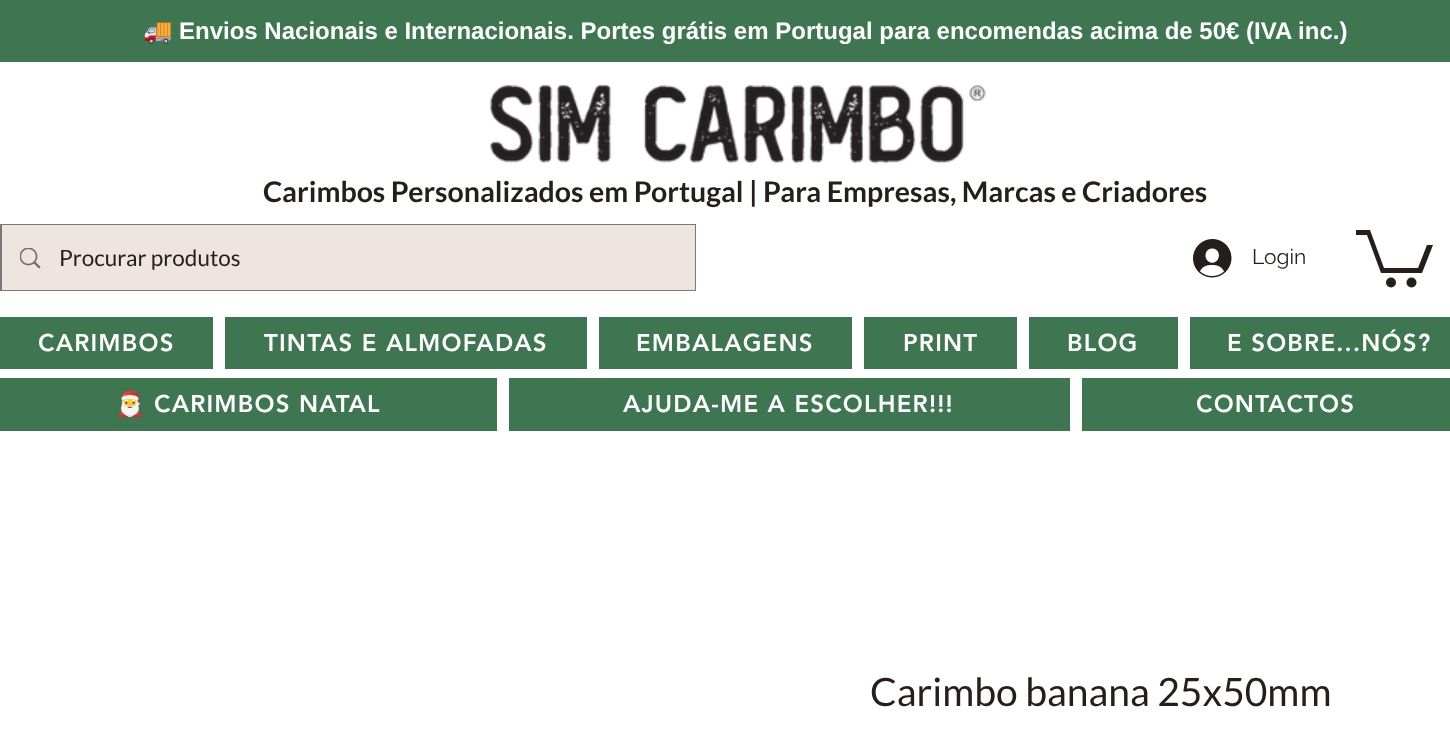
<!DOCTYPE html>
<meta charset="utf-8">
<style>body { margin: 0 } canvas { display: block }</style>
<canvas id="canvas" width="1450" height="743"></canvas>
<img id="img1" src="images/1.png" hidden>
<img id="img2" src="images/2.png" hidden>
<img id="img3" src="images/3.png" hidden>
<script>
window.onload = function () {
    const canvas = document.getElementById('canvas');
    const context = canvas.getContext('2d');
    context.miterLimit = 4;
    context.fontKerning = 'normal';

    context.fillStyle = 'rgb(255, 255, 255)';
    context.fillRect(0, 0, 1450, 743);
    context.fillStyle = 'rgb(63, 118, 82)';
    context.fillRect(0, 0, 1450, 62);
    context.drawImage(document.getElementById('img1'), 490, 84, 496, 80);
    context.strokeStyle = 'rgb(124, 120, 118)';
    context.lineWidth = 2;
    context.strokeRect(1, 225, 694, 65);
    context.fillStyle = 'rgb(238, 228, 224)';
    context.fillRect(2, 225, 693, 65);
    context.drawImage(document.getElementById('img2'), 20, 248, 21, 21);
    context.drawImage(document.getElementById('img3'), 1193, 239, 39, 39);
    context.fillStyle = 'rgb(37, 30, 27)';
    context.beginPath();
    context.moveTo(1433, 245);
    context.lineTo(1422, 273);
    context.lineTo(1381, 273);
    context.lineTo(1367, 235);
    context.lineTo(1356, 235);
    context.lineTo(1356, 230);
    context.lineTo(1370, 230);
    context.lineTo(1384, 268);
    context.lineTo(1418, 268);
    context.lineTo(1427, 245);
    context.fill();
    context.beginPath();
    context.arc(1411.5, 282.5, 5, 0, 2 * Math.PI);
    context.fill();
    context.beginPath();
    context.arc(1391, 282.5, 5, 0, 2 * Math.PI);
    context.fill();
    context.fillStyle = 'rgb(63, 118, 82)';
    context.fillRect(0, 317, 213, 52);
    context.fillRect(225, 317, 362, 52);
    context.fillRect(599, 317, 253, 52);
    context.fillRect(864, 317, 153, 52);
    context.fillRect(1029, 317, 149, 52);
    context.fillRect(1190, 317, 260, 52);
    context.fillRect(0, 378, 497, 53);
    context.fillRect(509, 378, 561, 53);
    context.fillRect(1082, 378, 368, 53);
    context.font = 'bold 24px Noto Color Emoji';
    context.fillStyle = 'rgb(255, 255, 255)';
    context.fillText('🚚', 143, 39);
    context.font = 'bold 24px Liberation Sans';
    context.fillText('Envios Nacionais e Internacionais. Portes grátis em Portugal para encomendas acima de 50€ (IVA inc.)', 179, 39);
    context.font = 'bold 28.5px Lato';
    context.fillStyle = 'rgb(37, 30, 27)';
    context.fillText('Carimbos Personalizados em Portugal | Para Empresas, Marcas e Criadores', 263, 202);
    context.font = '22.5px Lato';
    context.fillText('Procurar produtos', 59, 266);
    context.font = '21px Raleway';
    context.fillText('Login', 1252, 264);
    context.letterSpacing = '1.2px';
    context.font = '900 24px "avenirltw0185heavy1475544"';
    context.fillStyle = 'rgb(255, 255, 255)';
    context.fillText('CARIMBOS', 38, 351);
    context.fillText('TINTAS E ALMOFADAS', 264, 351);
    context.fillText('EMBALAGENS', 636, 351);
    context.fillText('PRINT', 903, 351);
    context.fillText('BLOG', 1067, 351);
    context.fillText('E SOBRE...NÓS?', 1227, 351);
    context.font = '24px Noto Color Emoji';
    context.fillText('🎅', 115, 412);
    context.font = '900 24px "avenirltw0185heavy1475544"';
    context.fillText('CARIMBOS NATAL', 154, 412);
    context.fillText('AJUDA-ME A ESCOLHER!!!', 623, 412);
    context.fillText('CONTACTOS', 1196, 412);
    context.letterSpacing = '0px';
    context.font = '39px Lato';
    context.fillStyle = 'rgb(37, 30, 27)';
    context.fillText('Carimbo banana 25x50mm', 870, 706);
};
</script>
